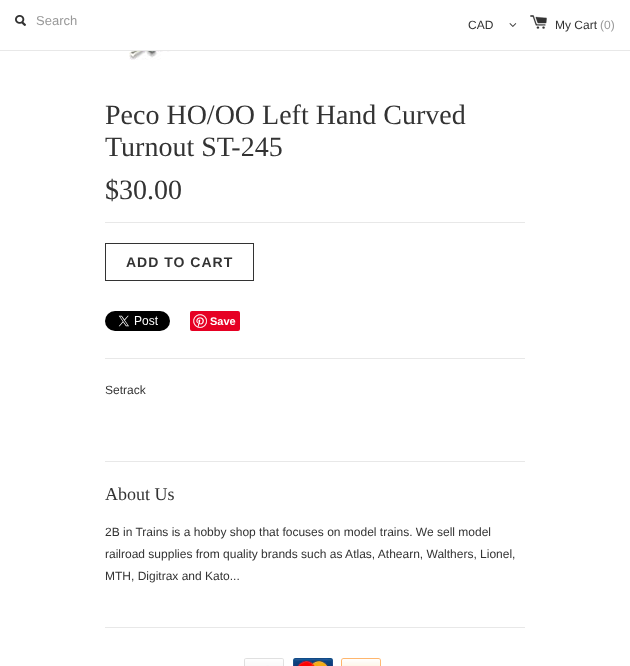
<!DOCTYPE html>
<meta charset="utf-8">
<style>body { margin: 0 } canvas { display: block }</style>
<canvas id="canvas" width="630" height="666"></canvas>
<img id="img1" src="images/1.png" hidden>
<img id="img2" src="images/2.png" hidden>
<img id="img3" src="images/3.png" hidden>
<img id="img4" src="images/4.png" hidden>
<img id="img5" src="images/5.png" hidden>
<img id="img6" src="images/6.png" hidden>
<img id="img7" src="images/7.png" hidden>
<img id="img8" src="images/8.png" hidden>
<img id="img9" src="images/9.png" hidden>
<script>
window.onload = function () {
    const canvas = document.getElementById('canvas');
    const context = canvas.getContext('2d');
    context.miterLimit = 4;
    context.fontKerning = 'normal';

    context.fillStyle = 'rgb(255, 255, 255)';
    context.fillRect(0, 0, 630, 666);
    context.fillStyle = 'rgb(232, 232, 232)';
    context.fillRect(0, 50, 630, 1);
    context.drawImage(document.getElementById('img1'), 15, 15, 11, 11);
    context.drawImage(document.getElementById('img2'), 509, 23, 8, 4);
    context.drawImage(document.getElementById('img3'), 530, 15, 17, 14);
    context.drawImage(document.getElementById('img4'), 113, 51, 151, 9);
    context.fillRect(105, 222, 420, 1);
    context.strokeStyle = 'rgb(51, 51, 51)';
    context.strokeRect(105.5, 243.5, 148, 37);
    context.drawImage(document.getElementById('img5'), 105, 311, 65, 20);
    context.fillStyle = 'rgb(230, 0, 35)';
    context.beginPath();
    context.roundRect(190, 311, 50, 20, 2);
    context.fill();
    context.drawImage(document.getElementById('img6'), 193, 314, 14, 14);
    context.fillStyle = 'rgb(232, 232, 232)';
    context.fillRect(105, 358, 420, 1);
    context.fillRect(105, 461, 420, 1);
    context.fillRect(105, 627, 420, 1);
    context.drawImage(document.getElementById('img7'), 244, 658, 40, 8);
    context.drawImage(document.getElementById('img8'), 293, 658, 40, 8);
    context.drawImage(document.getElementById('img9'), 341, 658, 40, 8);
    context.font = '13px Liberation Sans';
    context.fillStyle = 'rgb(153, 153, 153)';
    context.fillText('Search', 36, 25);
    context.font = '12px Liberation Sans';
    context.fillStyle = 'rgb(51, 51, 51)';
    context.fillText('CAD', 468, 29);
    context.fillText('My Cart', 555, 29);
    context.fillStyle = 'rgb(153, 153, 153)';
    context.fillText('(0)', 600, 29);
    context.font = '28px Liberation Serif';
    context.fillStyle = 'rgb(51, 51, 51)';
    context.fillText('Peco HO/OO Left Hand Curved', 105, 124);
    context.fillText('Turnout ST-245', 105, 156);
    context.fillText('$30.00', 105, 199);
    context.letterSpacing = '1px';
    context.font = 'bold 14px Liberation Sans';
    context.fillText('ADD TO CART', 126, 267);
    context.letterSpacing = '0px';
    context.font = 'bold 11px Liberation Sans';
    context.fillStyle = 'rgb(255, 255, 255)';
    context.fillText('Save', 210, 325);
    context.font = '12px Liberation Sans';
    context.fillStyle = 'rgb(51, 51, 51)';
    context.fillText('Setrack', 105, 394);
    context.font = '18px Liberation Serif';
    context.fillText('About Us', 105, 500);
    context.font = '12px Liberation Sans';
    context.fillText('2B in Trains is a hobby shop that focuses on model trains. We sell model', 105, 536);
    context.fillText('railroad supplies from quality brands such as Atlas, Athearn, Walthers, Lionel,', 105, 558);
    context.fillText('MTH, Digitrax and Kato...', 105, 580);
};
</script>
